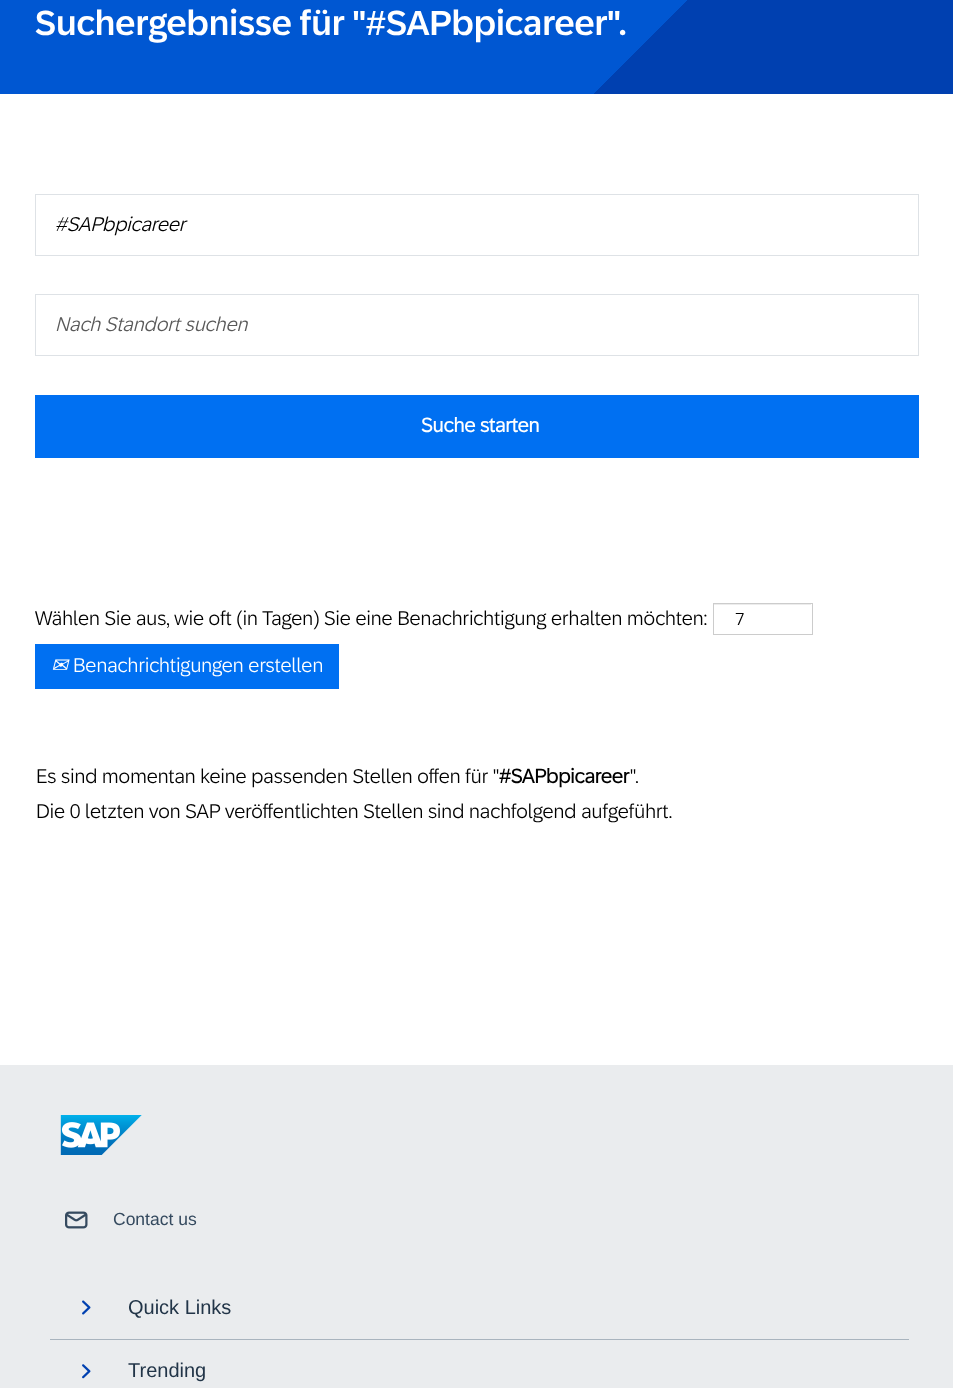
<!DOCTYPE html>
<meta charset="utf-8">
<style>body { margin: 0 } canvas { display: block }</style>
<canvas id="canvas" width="953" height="1388"></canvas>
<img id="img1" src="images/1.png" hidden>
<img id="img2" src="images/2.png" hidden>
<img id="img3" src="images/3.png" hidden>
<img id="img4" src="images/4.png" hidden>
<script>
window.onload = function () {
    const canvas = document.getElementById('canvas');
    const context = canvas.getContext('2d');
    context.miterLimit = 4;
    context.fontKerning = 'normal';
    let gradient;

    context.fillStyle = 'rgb(255, 255, 255)';
    context.fillRect(0, 0, 953, 1388);
    gradient = context.createLinearGradient(750, 298, 204, -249);
    gradient.addColorStop(0, 'rgb(0, 64, 176)');
    gradient.addColorStop(0.33, 'rgb(0, 64, 176)');
    gradient.addColorStop(0.33, 'rgb(0, 87, 210)');
    gradient.addColorStop(1, 'rgb(0, 87, 210)');
    context.fillStyle = gradient;
    context.fillRect(0, 0, 953, 94);
    context.strokeStyle = 'rgb(222, 226, 230)';
    context.strokeRect(35.5, 194.5, 883, 61);
    context.strokeRect(35.5, 294.5, 883, 61);
    context.fillStyle = 'rgb(0, 112, 242)';
    context.fillRect(35, 395, 884, 63);
    context.fillStyle = 'rgb(236, 236, 236)';
    context.fillRect(714, 604, 97, 1);
    context.strokeStyle = 'rgb(204, 204, 204)';
    context.strokeRect(713.5, 603.5, 99, 31);
    context.fillStyle = 'rgb(0, 112, 242)';
    context.fillRect(35, 644, 304, 45);
    context.fillStyle = 'rgb(234, 236, 238)';
    context.fillRect(0, 1065, 953, 323);
    context.drawImage(document.getElementById('img1'), 60, 1115, 82, 40);
    context.drawImage(document.getElementById('img2'), 65, 1211, 23, 18);
    context.fillStyle = 'rgb(169, 180, 190)';
    context.fillRect(50, 1339, 859, 1);
    context.drawImage(document.getElementById('img3'), 82, 1300, 9, 15);
    context.drawImage(document.getElementById('img4'), 82, 1364, 9, 15);
    context.font = '500 35px "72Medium"';
    context.fillStyle = 'rgb(255, 255, 255)';
    context.fillText('Suchergebnisse für "#SAPbpicareer".', 35, 35);
    context.font = 'italic 300 20px "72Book"';
    context.fillStyle = 'rgb(0, 0, 0)';
    context.fillText('#SAPbpicareer', 55, 231);
    context.fillStyle = 'rgb(89, 89, 89)';
    context.fillText('Nach Standort suchen', 55, 331);
    context.font = 'bold 20px "72Book"';
    context.fillStyle = 'rgb(255, 255, 255)';
    context.fillText('Suche starten', 421, 432);
    context.font = '300 20px "72Book"';
    context.fillStyle = 'rgb(0, 0, 0)';
    context.fillText('Wählen Sie aus, wie oft (in Tagen) Sie eine Benachrichtigung erhalten möchten:', 35, 625);
    context.font = '300 17.5px "72Book"';
    context.fillText('7', 735, 625);
    context.font = 'italic 20px DejaVu Sans';
    context.fillStyle = 'rgb(255, 255, 255)';
    context.fillText('✉', 51, 672);
    context.font = '300 20px "72Book"';
    context.fillText('Benachrichtigungen erstellen', 73, 672);
    context.fillStyle = 'rgb(0, 0, 0)';
    context.fillText('Es sind momentan keine passenden Stellen offen für "', 36, 783);
    context.font = 'bold 20px "72Book"';
    context.fillText('#SAPbpicareer', 499, 783);
    context.font = '300 20px "72Book"';
    context.fillText('".', 630, 783);
    context.fillText('Die 0 letzten von SAP veröffentlichten Stellen sind nachfolgend aufgeführt.', 36, 818);
    context.font = '17.5px Liberation Sans';
    context.fillStyle = 'rgb(53, 74, 95)';
    context.fillText('Contact us', 113, 1225);
    context.font = '20px Liberation Sans';
    context.fillStyle = 'rgb(34, 53, 72)';
    context.fillText('Quick Links', 128, 1314);
    context.fillText('Trending', 128, 1377);
};
</script>
